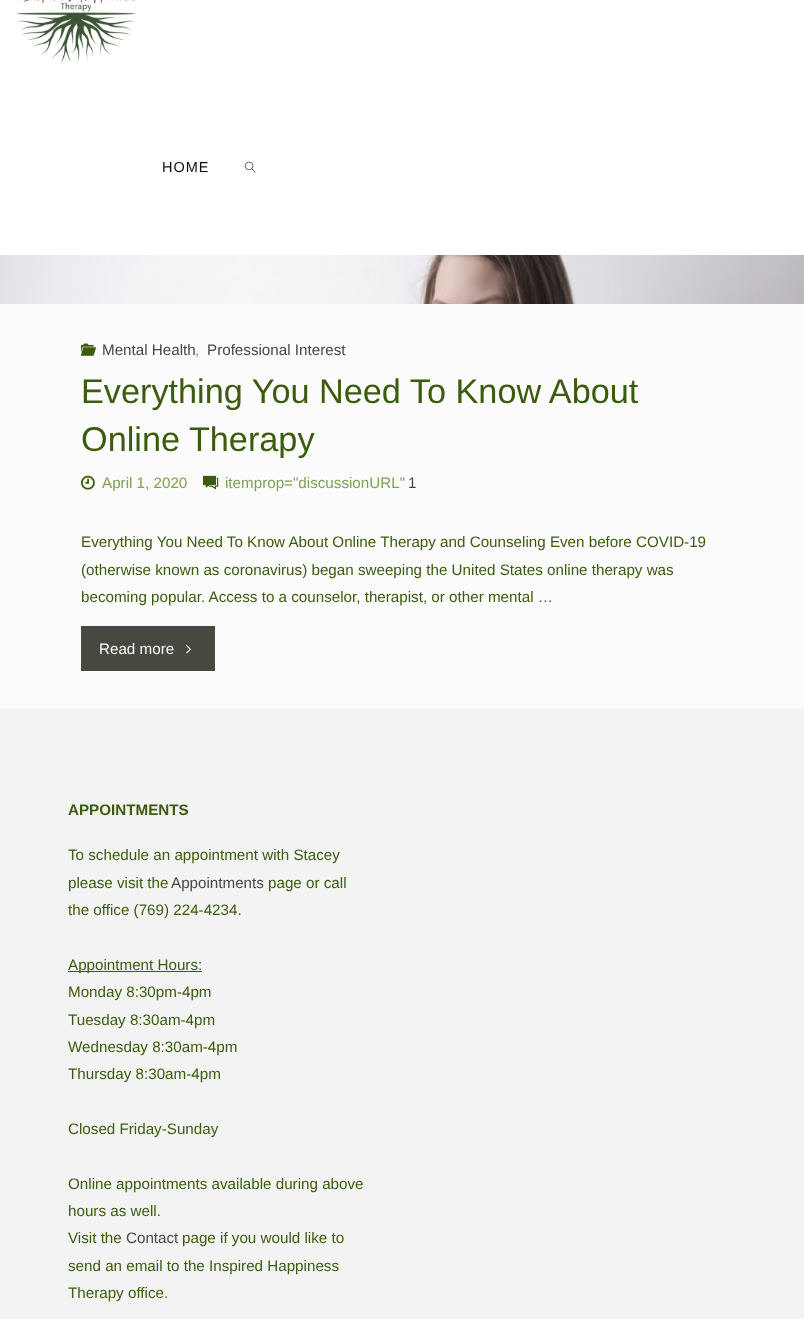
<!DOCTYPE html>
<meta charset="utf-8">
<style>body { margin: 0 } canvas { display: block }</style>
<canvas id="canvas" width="804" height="1319"></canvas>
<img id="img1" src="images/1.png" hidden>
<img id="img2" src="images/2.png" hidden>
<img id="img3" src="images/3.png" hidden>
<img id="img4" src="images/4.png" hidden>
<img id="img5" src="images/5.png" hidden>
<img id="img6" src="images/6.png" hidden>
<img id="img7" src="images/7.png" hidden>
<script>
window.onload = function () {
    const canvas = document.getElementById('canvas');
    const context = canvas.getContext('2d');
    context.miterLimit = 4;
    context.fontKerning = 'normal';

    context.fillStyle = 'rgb(243, 243, 243)';
    context.fillRect(0, 0, 804, 1319);
    context.fillStyle = 'rgb(255, 255, 255)';
    context.fillRect(0, 0, 804, 255);
    context.drawImage(document.getElementById('img1'), 17, 0, 119, 62);
    context.drawImage(document.getElementById('img2'), 245, 161, 11, 12);
    context.fillStyle = 'rgb(251, 251, 251)';
    context.fillRect(0, 304, 804, 405);
    context.drawImage(document.getElementById('img3'), 0, 255, 804, 49);
    context.drawImage(document.getElementById('img4'), 81, 343, 16, 13);
    context.drawImage(document.getElementById('img5'), 81, 475, 14, 15);
    context.drawImage(document.getElementById('img6'), 203, 475, 16, 15);
    context.fillStyle = 'rgb(71, 73, 65)';
    context.fillRect(81, 626, 134, 45);
    context.drawImage(document.getElementById('img7'), 186, 645, 5, 9);
    context.fillStyle = 'rgb(59, 91, 13)';
    context.fillRect(68, 971, 134, 1);
    context.letterSpacing = '1px';
    context.font = '14.5px Liberation Sans';
    context.fillStyle = 'rgb(15, 15, 15)';
    context.fillText('HOME', 162, 172);
    context.letterSpacing = '0px';
    context.font = '15.2px Liberation Sans';
    context.fillStyle = 'rgb(71, 73, 65)';
    context.fillText('Mental Health', 102, 355);
    context.fillStyle = 'rgb(128, 160, 82)';
    context.fillText(',', 195, 355);
    context.fillStyle = 'rgb(71, 73, 65)';
    context.fillText('Professional Interest', 207, 355);
    context.font = '34.25px Liberation Sans';
    context.fillStyle = 'rgb(59, 91, 13)';
    context.fillText('Everything You Need To Know About', 81, 403);
    context.fillText('Online Therapy', 81, 451);
    context.font = '15.2px Liberation Sans';
    context.fillStyle = 'rgb(128, 160, 82)';
    context.fillText('April 1, 2020', 102, 488);
    context.fillText('itemprop="discussionURL"', 225, 488);
    context.fillStyle = 'rgb(71, 73, 65)';
    context.fillText('1', 408, 488);
    context.fillStyle = 'rgb(59, 91, 13)';
    context.fillText('Everything You Need To Know About Online Therapy and Counseling Even before COVID-19', 81, 547);
    context.fillText('(otherwise known as coronavirus) began sweeping the United States online therapy was', 81, 575);
    context.fillText('becoming popular. Access to a counselor, therapist, or other mental …', 81, 602);
    context.fillStyle = 'rgb(251, 251, 251)';
    context.fillText('Read more', 99, 654);
    context.font = 'bold 15.2px Liberation Sans';
    context.fillStyle = 'rgb(59, 91, 13)';
    context.fillText('APPOINTMENTS', 68, 815);
    context.font = '15.2px Liberation Sans';
    context.fillText('To schedule an appointment with Stacey', 68, 860);
    context.fillText('please visit the', 68, 888);
    context.fillStyle = 'rgb(71, 73, 65)';
    context.fillText('Appointments', 171, 888);
    context.fillStyle = 'rgb(59, 91, 13)';
    context.fillText('page or call', 268, 888);
    context.fillText('the office (769) 224-4234.', 68, 915);
    context.fillText('Appointment Hours:', 68, 970);
    context.fillText('Monday 8:30pm-4pm', 68, 997);
    context.fillText('Tuesday 8:30am-4pm', 68, 1025);
    context.fillText('Wednesday 8:30am-4pm', 68, 1052);
    context.fillText('Thursday 8:30am-4pm', 68, 1079);
    context.fillText('Closed Friday-Sunday', 68, 1134);
    context.fillText('Online appointments available during above', 68, 1189);
    context.fillText('hours as well.', 68, 1216);
    context.fillText('Visit the', 68, 1243);
    context.fillStyle = 'rgb(71, 73, 65)';
    context.fillText('Contact', 126, 1243);
    context.fillStyle = 'rgb(59, 91, 13)';
    context.fillText('page if you would like to', 182, 1243);
    context.fillText('send an email to the Inspired Happiness', 68, 1271);
    context.fillText('Therapy office.', 68, 1298);
};
</script>
